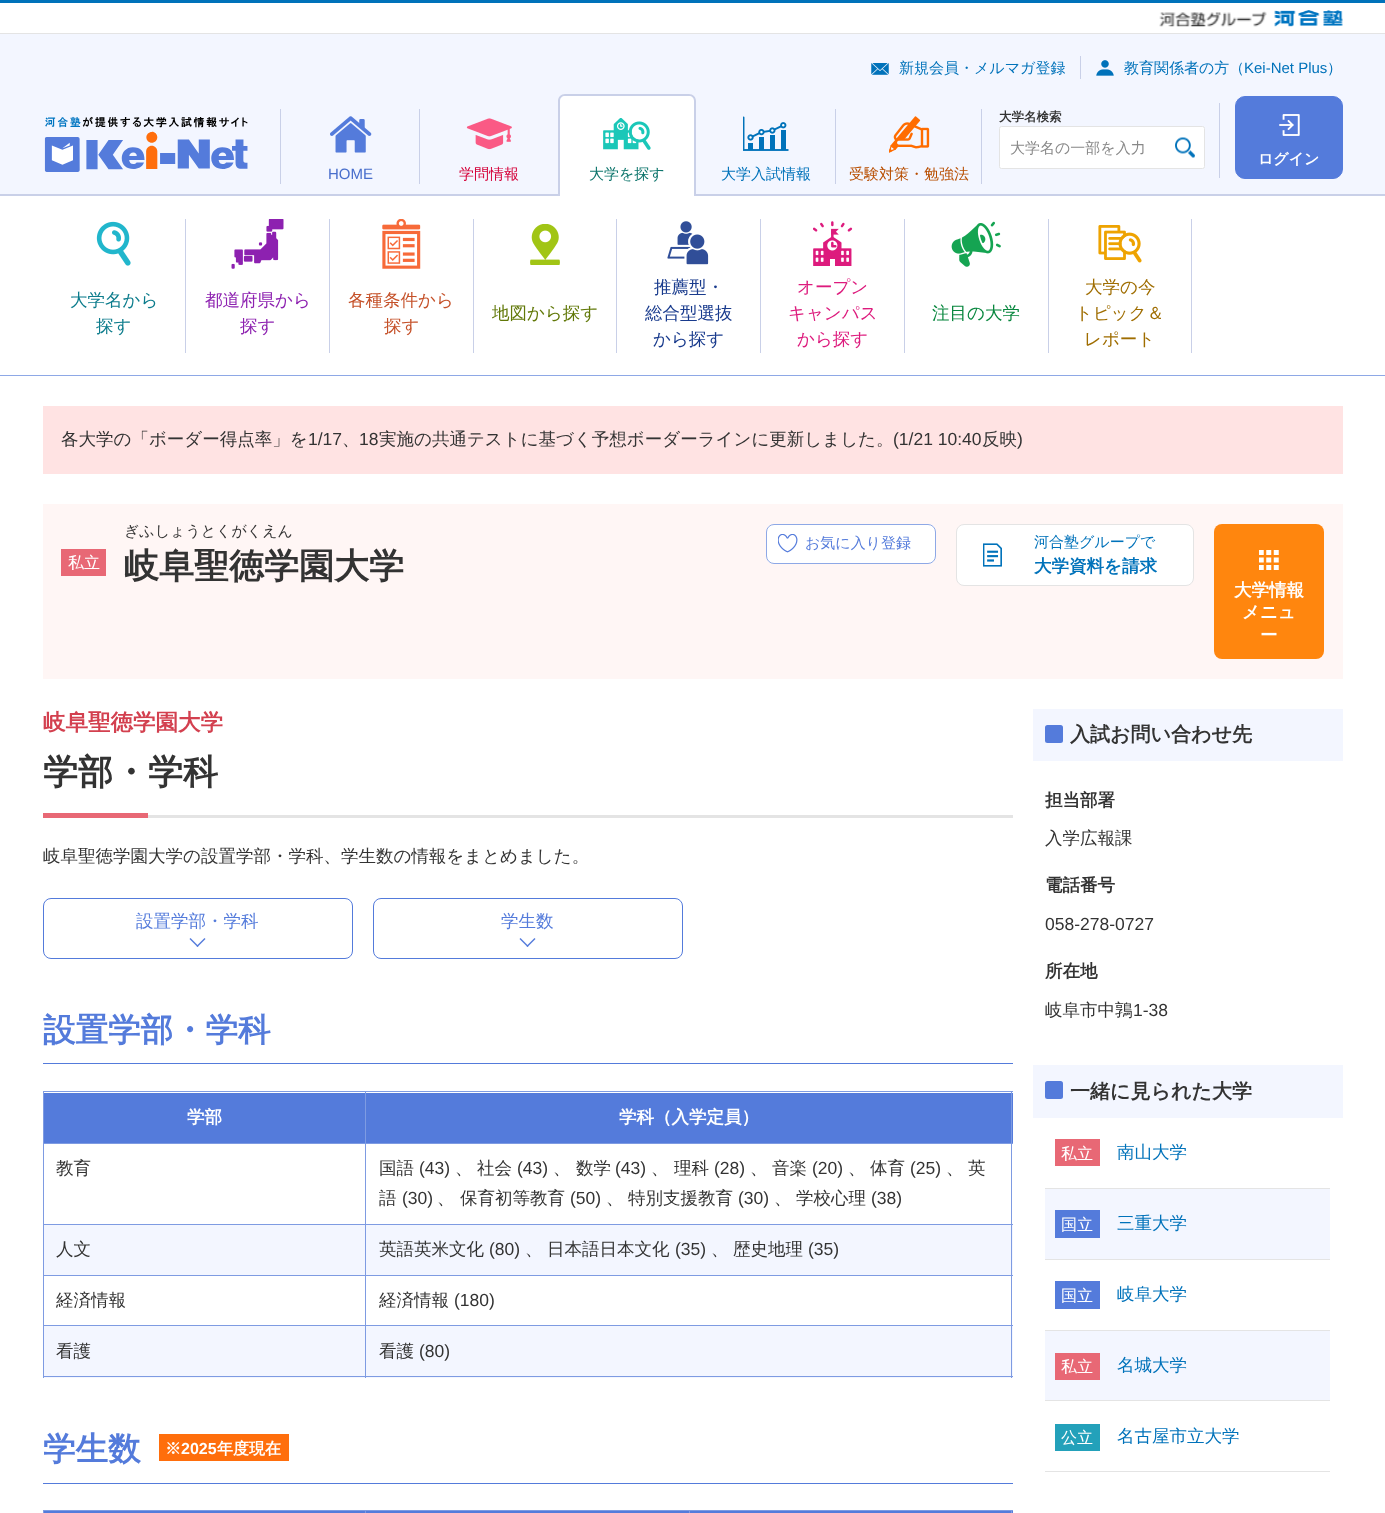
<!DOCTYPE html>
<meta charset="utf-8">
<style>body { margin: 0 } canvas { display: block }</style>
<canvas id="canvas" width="1385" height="1513"></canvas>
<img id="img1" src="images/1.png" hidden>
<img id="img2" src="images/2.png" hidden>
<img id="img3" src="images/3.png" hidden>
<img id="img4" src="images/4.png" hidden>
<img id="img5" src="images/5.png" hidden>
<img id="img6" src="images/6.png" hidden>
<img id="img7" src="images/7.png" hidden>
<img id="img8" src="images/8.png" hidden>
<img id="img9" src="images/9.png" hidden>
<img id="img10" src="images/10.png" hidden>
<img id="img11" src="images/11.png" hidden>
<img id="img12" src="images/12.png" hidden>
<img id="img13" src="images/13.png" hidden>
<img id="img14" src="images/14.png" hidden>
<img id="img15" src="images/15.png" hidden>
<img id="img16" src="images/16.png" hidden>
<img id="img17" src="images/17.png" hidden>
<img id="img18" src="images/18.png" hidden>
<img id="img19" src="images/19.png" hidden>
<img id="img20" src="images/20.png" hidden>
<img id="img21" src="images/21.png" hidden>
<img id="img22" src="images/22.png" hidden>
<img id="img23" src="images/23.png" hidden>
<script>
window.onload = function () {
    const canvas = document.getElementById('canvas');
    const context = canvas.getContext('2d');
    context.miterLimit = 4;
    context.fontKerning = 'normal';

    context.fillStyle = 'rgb(255, 255, 255)';
    context.fillRect(0, 0, 1385, 1513);
    context.fillStyle = 'rgb(0, 114, 186)';
    context.fillRect(0, 0, 1385, 3);
    context.fillStyle = 'rgb(228, 228, 228)';
    context.fillRect(0, 33, 1385, 1);
    context.drawImage(document.getElementById('img1'), 1159, 11, 108, 16);
    context.drawImage(document.getElementById('img2'), 1274, 10, 69, 17);
    context.fillStyle = 'rgb(243, 246, 255)';
    context.fillRect(0, 34, 1385, 160);
    context.fillStyle = 'rgb(201, 208, 232)';
    context.fillRect(0, 194, 1385, 2);
    context.drawImage(document.getElementById('img3'), 871, 63, 18, 12);
    context.fillRect(1080, 56, 1, 23);
    context.drawImage(document.getElementById('img4'), 1096, 60, 18, 16);
    context.fillStyle = 'rgb(255, 255, 255)';
    context.beginPath();
    context.roundRect(999.5, 126.5, 205, 42, 2);
    context.fill();
    context.strokeStyle = 'rgb(228, 228, 228)';
    context.stroke();
    context.drawImage(document.getElementById('img5'), 1175, 137, 20, 21);
    context.fillStyle = 'rgb(201, 208, 232)';
    context.fillRect(1219, 103, 1, 75);
    context.drawImage(document.getElementById('img6'), 44, 116, 204, 56);
    context.fillStyle = 'rgb(84, 123, 219)';
    context.beginPath();
    context.roundRect(1235.5, 96.5, 107, 82, 9.5);
    context.fill();
    context.strokeStyle = 'rgb(84, 123, 219)';
    context.stroke();
    context.drawImage(document.getElementById('img7'), 1279, 114, 21, 22);
    context.fillStyle = 'rgb(255, 255, 255)';
    context.beginPath();
    context.roundRect(558, 94, 138, 102, [8, 8, 0, 0]);
    context.fill();
    context.fillStyle = 'rgb(201, 208, 232)';
    context.beginPath();
    context.moveTo(565, 94);
    context.lineTo(689, 94);
    context.bezierCurveTo(693, 94, 696, 97, 696, 101);
    context.lineTo(696, 196);
    context.lineTo(558, 196);
    context.lineTo(558, 101);
    context.bezierCurveTo(558, 97, 561, 94, 565, 94);
    context.closePath();
    context.moveTo(565, 96);
    context.lineTo(689, 96);
    context.bezierCurveTo(692, 96, 694, 98, 694, 101);
    context.lineTo(694, 196);
    context.lineTo(560, 196);
    context.lineTo(560, 101);
    context.bezierCurveTo(560, 98, 562, 96, 565, 96);
    context.closePath();
    context.fill('evenodd');
    context.drawImage(document.getElementById('img8'), 603, 118, 48, 32);
    context.fillStyle = 'rgb(142, 168, 230)';
    context.fillRect(0, 375, 1385, 1);
    context.fillStyle = 'rgb(201, 208, 232)';
    context.fillRect(185, 219, 1, 134);
    context.drawImage(document.getElementById('img9'), 96, 221, 35, 45);
    context.fillRect(329, 219, 1, 134);
    context.drawImage(document.getElementById('img10'), 231, 219, 53, 50);
    context.fillRect(473, 219, 1, 134);
    context.drawImage(document.getElementById('img11'), 382, 219, 39, 50);
    context.fillRect(616, 219, 1, 134);
    context.drawImage(document.getElementById('img12'), 530, 224, 30, 41);
    context.fillRect(760, 219, 1, 134);
    context.drawImage(document.getElementById('img13'), 667, 221, 42, 44);
    context.fillRect(904, 219, 1, 134);
    context.drawImage(document.getElementById('img14'), 813, 221, 40, 45);
    context.fillRect(1048, 219, 1, 134);
    context.drawImage(document.getElementById('img15'), 951, 221, 50, 46);
    context.fillRect(1191, 219, 1, 134);
    context.drawImage(document.getElementById('img16'), 1098, 225, 44, 38);
    context.fillRect(280, 109, 1, 75);
    context.drawImage(document.getElementById('img17'), 330, 116, 42, 37);
    context.fillRect(419, 109, 1, 75);
    context.drawImage(document.getElementById('img18'), 466, 118, 46, 32);
    context.drawImage(document.getElementById('img19'), 743, 116, 46, 35);
    context.fillRect(981, 109, 1, 75);
    context.fillRect(835, 109, 1, 75);
    context.drawImage(document.getElementById('img20'), 889, 116, 41, 37);
    context.fillStyle = 'rgb(255, 227, 227)';
    context.fillRect(43, 406, 1300, 68);
    context.fillStyle = 'rgb(255, 246, 245)';
    context.fillRect(43, 504, 1300, 175);
    context.fillStyle = 'rgb(232, 104, 117)';
    context.fillRect(61, 549, 45, 27);
    context.fillStyle = 'rgb(255, 255, 255)';
    context.beginPath();
    context.roundRect(766, 524, 170, 40, 8);
    context.fill();
    context.drawImage(document.getElementById('img21'), 778, 534, 20, 19);
    context.beginPath();
    context.roundRect(766.5, 524.5, 169, 39, 7.5);
    context.strokeStyle = 'rgb(142, 168, 230)';
    context.stroke();
    context.beginPath();
    context.roundRect(956.5, 524.5, 237, 61, 7.5);
    context.fill();
    context.strokeStyle = 'rgb(228, 228, 228)';
    context.stroke();
    context.drawImage(document.getElementById('img22'), 983, 543, 19, 24);
    context.fillStyle = 'rgb(255, 134, 14)';
    context.beginPath();
    context.roundRect(1214, 524, 110, 135, 8);
    context.fill();
    context.drawImage(document.getElementById('img23'), 1259, 550, 20, 20);
    context.fillStyle = 'rgb(228, 228, 228)';
    context.fillRect(148, 815, 865, 3);
    context.fillStyle = 'rgb(232, 104, 117)';
    context.fillRect(43, 813, 105, 5);
    context.beginPath();
    context.roundRect(43.5, 898.5, 309, 60, 7.5);
    context.strokeStyle = 'rgb(84, 123, 219)';
    context.stroke();
    context.fillStyle = 'rgb(84, 123, 219)';
    context.beginPath();
    context.moveTo(205.5, 939);
    context.lineTo(197.5, 947);
    context.lineTo(196.5, 946);
    context.lineTo(204.5, 938);
    context.closePath();
    context.fill();
    context.beginPath();
    context.moveTo(198.5, 946);
    context.lineTo(197.5, 947);
    context.lineTo(189.5, 939);
    context.lineTo(190.5, 938);
    context.closePath();
    context.fill();
    context.beginPath();
    context.roundRect(373.5, 898.5, 309, 60, 7.5);
    context.stroke();
    context.beginPath();
    context.moveTo(535.5, 939);
    context.lineTo(527.5, 947);
    context.lineTo(526.5, 946);
    context.lineTo(534.5, 938);
    context.closePath();
    context.fill();
    context.beginPath();
    context.moveTo(528.5, 946);
    context.lineTo(527.5, 947);
    context.lineTo(519.5, 939);
    context.lineTo(520.5, 938);
    context.closePath();
    context.fill();
    context.fillRect(43, 1063, 970, 1);
    context.fillRect(44, 1093, 321, 50);
    context.fillStyle = 'rgb(126, 155, 226)';
    context.fillRect(365, 1091, 648, 1);
    context.fillRect(365, 1143, 648, 1);
    context.fillRect(365, 1224, 648, 1);
    context.fillStyle = 'rgb(243, 246, 255)';
    context.fillRect(44, 1225, 969, 50);
    context.fillStyle = 'rgb(126, 155, 226)';
    context.fillRect(365, 1275, 648, 1);
    context.fillRect(365, 1325, 648, 1);
    context.fillStyle = 'rgb(243, 246, 255)';
    context.fillRect(44, 1326, 969, 52);
    context.fillStyle = 'rgb(126, 155, 226)';
    context.fillRect(1011, 1325, 1, 53);
    context.fillRect(365, 1376, 648, 1);
    context.fillRect(365, 1325, 1, 53);
    context.fillRect(43, 1325, 323, 1);
    context.fillRect(365, 1275, 1, 51);
    context.fillRect(43, 1275, 323, 1);
    context.fillRect(365, 1224, 1, 52);
    context.fillRect(43, 1224, 323, 1);
    context.fillRect(365, 1143, 1, 82);
    context.fillRect(43, 1143, 323, 1);
    context.fillRect(365, 1091, 1, 53);
    context.fillRect(43, 1091, 323, 1);
    context.fillRect(43, 1376, 323, 1);
    context.fillRect(43, 1325, 1, 53);
    context.fillRect(43, 1275, 1, 51);
    context.fillRect(43, 1224, 1, 52);
    context.fillRect(43, 1143, 1, 82);
    context.fillRect(43, 1091, 1, 53);
    context.fillStyle = 'rgb(84, 123, 219)';
    context.fillRect(366, 1093, 647, 50);
    context.fillStyle = 'rgb(126, 155, 226)';
    context.fillRect(1011, 1275, 1, 51);
    context.fillRect(1011, 1224, 1, 52);
    context.fillRect(1011, 1143, 1, 82);
    context.fillRect(1011, 1091, 1, 53);
    context.fillStyle = 'rgb(84, 123, 219)';
    context.fillRect(43, 1483, 970, 1);
    context.fillStyle = 'rgb(255, 110, 12)';
    context.fillRect(159, 1434, 130, 27);
    context.fillStyle = 'rgb(84, 123, 219)';
    context.fillRect(44, 1511, 969, 2);
    context.fillStyle = 'rgb(126, 155, 226)';
    context.fillRect(689, 1510, 324, 1);
    context.fillRect(689, 1510, 1, 3);
    context.fillRect(365, 1510, 325, 1);
    context.fillRect(365, 1510, 1, 3);
    context.fillRect(43, 1510, 323, 1);
    context.fillRect(43, 1510, 1, 3);
    context.fillRect(1011, 1510, 1, 3);
    context.fillStyle = 'rgb(243, 246, 255)';
    context.fillRect(1033, 709, 310, 52);
    context.fillStyle = 'rgb(84, 123, 219)';
    context.beginPath();
    context.roundRect(1045, 725, 18, 18, 2.5);
    context.fill();
    context.fillStyle = 'rgb(243, 246, 255)';
    context.fillRect(1033, 1065, 310, 53);
    context.fillStyle = 'rgb(84, 123, 219)';
    context.beginPath();
    context.roundRect(1045, 1081, 18, 18, 2.5);
    context.fill();
    context.fillStyle = 'rgb(228, 228, 228)';
    context.fillRect(1045, 1188, 285, 1);
    context.fillStyle = 'rgb(232, 104, 117)';
    context.fillRect(1055, 1139, 45, 27);
    context.fillStyle = 'rgb(243, 246, 255)';
    context.fillRect(1045, 1189, 285, 70);
    context.fillStyle = 'rgb(228, 228, 228)';
    context.fillRect(1045, 1259, 285, 1);
    context.fillStyle = 'rgb(84, 123, 219)';
    context.fillRect(1055, 1210, 45, 28);
    context.fillStyle = 'rgb(228, 228, 228)';
    context.fillRect(1045, 1330, 285, 1);
    context.fillStyle = 'rgb(84, 123, 219)';
    context.fillRect(1055, 1281, 45, 28);
    context.fillStyle = 'rgb(243, 246, 255)';
    context.fillRect(1045, 1331, 285, 69);
    context.fillStyle = 'rgb(228, 228, 228)';
    context.fillRect(1045, 1400, 285, 1);
    context.fillStyle = 'rgb(232, 104, 117)';
    context.fillRect(1055, 1353, 45, 27);
    context.fillStyle = 'rgb(228, 228, 228)';
    context.fillRect(1045, 1471, 285, 1);
    context.fillStyle = 'rgb(35, 161, 186)';
    context.fillRect(1055, 1424, 45, 27);
    context.font = '500 15px WenQuanYi Zen Hei';
    context.fillStyle = 'rgb(0, 114, 186)';
    context.fillText('新規会員・メルマガ登録', 899, 73);
    context.fillText('教育関係者の方（', 1124, 73);
    context.font = '15px Liberation Sans';
    context.fillText('Kei-Net Plus', 1244, 73);
    context.font = '500 15px WenQuanYi Zen Hei';
    context.fillText('）', 1327, 73);
    context.font = 'bold 12.5px WenQuanYi Zen Hei';
    context.fillStyle = 'rgb(51, 51, 51)';
    context.fillText('大学名検索', 999, 121);
    context.font = '500 15px WenQuanYi Zen Hei';
    context.fillStyle = 'rgb(136, 136, 136)';
    context.fillText('大学名の一部を入力', 1010, 153);
    context.font = 'bold 15px WenQuanYi Zen Hei';
    context.fillStyle = 'rgb(255, 255, 255)';
    context.fillText('ログイン', 1258, 164);
    context.font = '500 15px WenQuanYi Zen Hei';
    context.fillStyle = 'rgb(13, 117, 108)';
    context.fillText('大学を探す', 589, 179);
    context.font = '500 17.5px WenQuanYi Zen Hei';
    context.fillStyle = 'rgb(12, 124, 140)';
    context.fillText('大学名から', 70, 306);
    context.fillText('探す', 96, 332);
    context.fillStyle = 'rgb(141, 33, 176)';
    context.fillText('都道府県から', 205, 306);
    context.fillText('探す', 240, 332);
    context.fillStyle = 'rgb(197, 81, 41)';
    context.fillText('各種条件から', 348, 306);
    context.fillText('探す', 384, 332);
    context.fillStyle = 'rgb(97, 120, 8)';
    context.fillText('地図から探す', 492, 319);
    context.fillStyle = 'rgb(25, 59, 141)';
    context.fillText('推薦型・', 654, 293);
    context.fillText('総合型選抜', 645, 319);
    context.fillText('から探す', 653, 345);
    context.fillStyle = 'rgb(221, 27, 125)';
    context.fillText('オープン', 797, 293);
    context.fillText('キャンパス', 788, 319);
    context.fillText('から探す', 797, 345);
    context.fillStyle = 'rgb(8, 135, 62)';
    context.fillText('注目の大学', 932, 319);
    context.fillStyle = 'rgb(159, 109, 0)';
    context.fillText('大学の今', 1085, 293);
    context.fillText('トピック＆', 1075, 319);
    context.fillText('レポート', 1084, 345);
    context.font = '15px Liberation Sans';
    context.fillStyle = 'rgb(72, 110, 204)';
    context.fillText('HOME', 328, 179);
    context.font = '500 15px WenQuanYi Zen Hei';
    context.fillStyle = 'rgb(213, 0, 57)';
    context.fillText('学問情報', 459, 179);
    context.fillStyle = 'rgb(0, 114, 186)';
    context.fillText('大学入試情報', 721, 179);
    context.fillStyle = 'rgb(184, 78, 0)';
    context.fillText('受験対策・勉強法', 849, 179);
    context.font = '500 17.5px WenQuanYi Zen Hei';
    context.fillStyle = 'rgb(51, 51, 51)';
    context.fillText('各大学の「ボーダー得点率」を', 61, 445);
    context.font = '17.5px Liberation Sans';
    context.fillText('1/17', 308, 445);
    context.font = '500 17.5px WenQuanYi Zen Hei';
    context.fillText('、', 342, 445);
    context.font = '17.5px Liberation Sans';
    context.fillText('18', 359, 445);
    context.font = '500 17.5px WenQuanYi Zen Hei';
    context.fillText('実施の共通テストに基づく予想ボーダーラインに更新しました。', 379, 445);
    context.font = '17.5px Liberation Sans';
    context.fillText('(1/21 10:40', 893, 445);
    context.font = '500 17.5px WenQuanYi Zen Hei';
    context.fillText('反映', 982, 445);
    context.font = '17.5px Liberation Sans';
    context.fillText(')', 1017, 445);
    context.font = '500 16px WenQuanYi Zen Hei';
    context.fillStyle = 'rgb(255, 255, 255)';
    context.fillText('私立', 68, 568);
    context.font = '500 15px WenQuanYi Zen Hei';
    context.fillStyle = 'rgb(51, 51, 51)';
    context.fillText('ぎふしょうとくがくえん', 124, 536);
    context.font = 'bold 35px WenQuanYi Zen Hei';
    context.fillText('岐阜聖徳学園大学', 124, 578);
    context.font = '500 15px WenQuanYi Zen Hei';
    context.fillStyle = 'rgb(84, 123, 219)';
    context.fillText('お気に入り登録', 805, 548);
    context.fillStyle = 'rgb(0, 114, 186)';
    context.fillText('河合塾グループで', 1034, 547);
    context.font = 'bold 17.5px WenQuanYi Zen Hei';
    context.fillText('大学資料を請求', 1034, 572);
    context.fillStyle = 'rgb(255, 255, 255)';
    context.fillText('大学情報', 1234, 596);
    context.fillText('メニュ', 1242, 618);
    context.fillText('ー', 1260, 641);
    context.font = 'bold 22.5px WenQuanYi Zen Hei';
    context.fillStyle = 'rgb(211, 64, 79)';
    context.fillText('岐阜聖徳学園大学', 43, 730);
    context.font = 'bold 35px WenQuanYi Zen Hei';
    context.fillStyle = 'rgb(51, 51, 51)';
    context.fillText('学部・学科', 43, 784);
    context.font = '500 17.5px WenQuanYi Zen Hei';
    context.fillText('岐阜聖徳学園大学の設置学部・学科、学生数の情報をまとめました。', 43, 862);
    context.fillStyle = 'rgb(84, 123, 219)';
    context.fillText('設置学部・学科', 136, 927);
    context.fillText('学生数', 501, 927);
    context.font = 'bold 32.5px WenQuanYi Zen Hei';
    context.fillText('設置学部・学科', 43, 1041);
    context.font = 'bold 17.5px WenQuanYi Zen Hei';
    context.fillStyle = 'rgb(255, 255, 255)';
    context.fillText('学部', 187, 1123);
    context.fillText('学科（入学定員）', 619, 1123);
    context.font = '500 17.5px WenQuanYi Zen Hei';
    context.fillStyle = 'rgb(51, 51, 51)';
    context.fillText('教育', 56, 1174);
    context.fillText('国語', 379, 1174);
    context.font = '17.5px Liberation Sans';
    context.fillText('(43)', 419, 1174);
    context.font = '500 17.5px WenQuanYi Zen Hei';
    context.fillText('、', 455, 1174);
    context.fillText('社会', 477, 1174);
    context.font = '17.5px Liberation Sans';
    context.fillText('(43)', 517, 1174);
    context.font = '500 17.5px WenQuanYi Zen Hei';
    context.fillText('、', 553, 1174);
    context.fillText('数学', 576, 1174);
    context.font = '17.5px Liberation Sans';
    context.fillText('(43)', 615, 1174);
    context.font = '500 17.5px WenQuanYi Zen Hei';
    context.fillText('、', 651, 1174);
    context.fillText('理科', 674, 1174);
    context.font = '17.5px Liberation Sans';
    context.fillText('(28)', 714, 1174);
    context.font = '500 17.5px WenQuanYi Zen Hei';
    context.fillText('、', 750, 1174);
    context.fillText('音楽', 772, 1174);
    context.font = '17.5px Liberation Sans';
    context.fillText('(20)', 812, 1174);
    context.font = '500 17.5px WenQuanYi Zen Hei';
    context.fillText('、', 848, 1174);
    context.fillText('体育', 870, 1174);
    context.font = '17.5px Liberation Sans';
    context.fillText('(25)', 910, 1174);
    context.font = '500 17.5px WenQuanYi Zen Hei';
    context.fillText('、', 946, 1174);
    context.fillText('英', 968, 1174);
    context.fillText('語', 379, 1204);
    context.font = '17.5px Liberation Sans';
    context.fillText('(30)', 402, 1204);
    context.font = '500 17.5px WenQuanYi Zen Hei';
    context.fillText('、', 437, 1204);
    context.fillText('保育初等教育', 460, 1204);
    context.font = '17.5px Liberation Sans';
    context.fillText('(50)', 570, 1204);
    context.font = '500 17.5px WenQuanYi Zen Hei';
    context.fillText('、', 606, 1204);
    context.fillText('特別支援教育', 628, 1204);
    context.font = '17.5px Liberation Sans';
    context.fillText('(30)', 738, 1204);
    context.font = '500 17.5px WenQuanYi Zen Hei';
    context.fillText('、', 774, 1204);
    context.fillText('学校心理', 796, 1204);
    context.font = '17.5px Liberation Sans';
    context.fillText('(38)', 871, 1204);
    context.font = '500 17.5px WenQuanYi Zen Hei';
    context.fillText('人文', 56, 1255);
    context.fillText('英語英米文化', 379, 1255);
    context.font = '17.5px Liberation Sans';
    context.fillText('(80)', 489, 1255);
    context.font = '500 17.5px WenQuanYi Zen Hei';
    context.fillText('、', 525, 1255);
    context.fillText('日本語日本文化', 547, 1255);
    context.font = '17.5px Liberation Sans';
    context.fillText('(35)', 675, 1255);
    context.font = '500 17.5px WenQuanYi Zen Hei';
    context.fillText('、', 711, 1255);
    context.fillText('歴史地理', 733, 1255);
    context.font = '17.5px Liberation Sans';
    context.fillText('(35)', 808, 1255);
    context.font = '500 17.5px WenQuanYi Zen Hei';
    context.fillText('経済情報', 56, 1306);
    context.fillText('経済情報', 379, 1306);
    context.font = '17.5px Liberation Sans';
    context.fillText('(180)', 454, 1306);
    context.font = '500 17.5px WenQuanYi Zen Hei';
    context.fillText('看護', 56, 1357);
    context.fillText('看護', 379, 1357);
    context.font = '17.5px Liberation Sans';
    context.fillText('(80)', 419, 1357);
    context.font = 'bold 32.5px WenQuanYi Zen Hei';
    context.fillStyle = 'rgb(84, 123, 219)';
    context.fillText('学生数', 43, 1460);
    context.font = 'bold 16px WenQuanYi Zen Hei';
    context.fillStyle = 'rgb(255, 255, 255)';
    context.fillText('※', 165, 1454);
    context.font = 'bold 16px Liberation Sans';
    context.fillText('2025', 181, 1454);
    context.font = 'bold 16px WenQuanYi Zen Hei';
    context.fillText('年度現在', 217, 1454);
    context.font = 'bold 20px WenQuanYi Zen Hei';
    context.fillStyle = 'rgb(51, 51, 51)';
    context.fillText('入試お問い合わせ先', 1070, 741);
    context.font = 'bold 17.5px WenQuanYi Zen Hei';
    context.fillText('担当部署', 1045, 806);
    context.font = '500 17.5px WenQuanYi Zen Hei';
    context.fillText('入学広報課', 1045, 844);
    context.font = 'bold 17.5px WenQuanYi Zen Hei';
    context.fillText('電話番号', 1045, 891);
    context.font = '17.5px Liberation Sans';
    context.fillText('058-278-0727', 1045, 930);
    context.font = 'bold 17.5px WenQuanYi Zen Hei';
    context.fillText('所在地', 1045, 977);
    context.font = '500 17.5px WenQuanYi Zen Hei';
    context.fillText('岐阜市中鶉', 1045, 1016);
    context.font = '17.5px Liberation Sans';
    context.fillText('1-38', 1133, 1016);
    context.font = 'bold 20px WenQuanYi Zen Hei';
    context.fillText('一緒に見られた大学', 1070, 1098);
    context.font = '500 16px WenQuanYi Zen Hei';
    context.fillStyle = 'rgb(255, 255, 255)';
    context.fillText('私立', 1061, 1159);
    context.font = '500 17.5px WenQuanYi Zen Hei';
    context.fillStyle = 'rgb(0, 114, 186)';
    context.fillText('南山大学', 1117, 1158);
    context.font = '500 16px WenQuanYi Zen Hei';
    context.fillStyle = 'rgb(255, 255, 255)';
    context.fillText('国立', 1061, 1230);
    context.font = '500 17.5px WenQuanYi Zen Hei';
    context.fillStyle = 'rgb(0, 114, 186)';
    context.fillText('三重大学', 1117, 1229);
    context.font = '500 16px WenQuanYi Zen Hei';
    context.fillStyle = 'rgb(255, 255, 255)';
    context.fillText('国立', 1061, 1301);
    context.font = '500 17.5px WenQuanYi Zen Hei';
    context.fillStyle = 'rgb(0, 114, 186)';
    context.fillText('岐阜大学', 1117, 1300);
    context.font = '500 16px WenQuanYi Zen Hei';
    context.fillStyle = 'rgb(255, 255, 255)';
    context.fillText('私立', 1061, 1372);
    context.font = '500 17.5px WenQuanYi Zen Hei';
    context.fillStyle = 'rgb(0, 114, 186)';
    context.fillText('名城大学', 1117, 1371);
    context.font = '500 16px WenQuanYi Zen Hei';
    context.fillStyle = 'rgb(255, 255, 255)';
    context.fillText('公立', 1061, 1443);
    context.font = '500 17.5px WenQuanYi Zen Hei';
    context.fillStyle = 'rgb(0, 114, 186)';
    context.fillText('名古屋市立大学', 1117, 1442);
};
</script>
